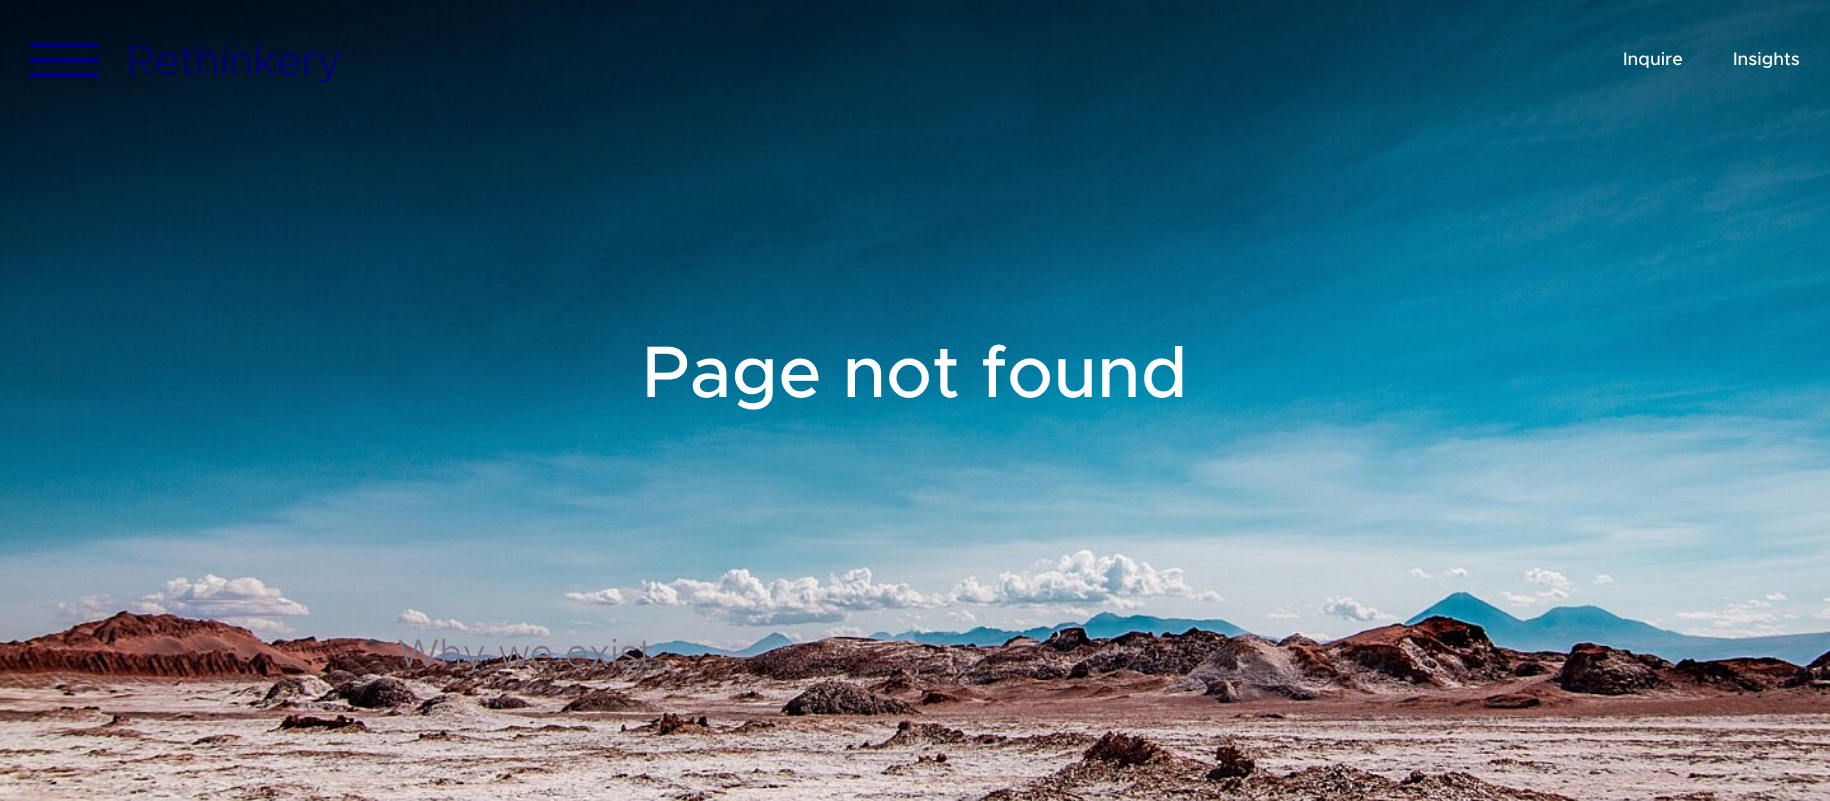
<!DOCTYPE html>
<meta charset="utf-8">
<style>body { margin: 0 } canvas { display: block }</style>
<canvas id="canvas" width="1830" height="801"></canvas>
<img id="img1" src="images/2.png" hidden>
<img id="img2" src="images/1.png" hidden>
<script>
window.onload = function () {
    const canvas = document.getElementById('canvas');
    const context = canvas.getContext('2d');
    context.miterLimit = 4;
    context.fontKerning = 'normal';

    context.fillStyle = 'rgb(255, 255, 255)';
    context.fillRect(0, 0, 1830, 801);
    context.drawImage(document.getElementById('img1'), 0, 0, 1830, 801);
    context.beginPath();
    context.moveTo(32.5, 45);
    context.lineTo(96.5, 45);
    context.moveTo(32.5, 60);
    context.lineTo(96.5, 60);
    context.moveTo(32.5, 75);
    context.lineTo(96.5, 75);
    context.strokeStyle = 'rgb(0, 0, 123)';
    context.lineWidth = 5;
    context.lineCap = 'square';
    context.stroke();
    context.drawImage(document.getElementById('img2'), 130, 45, 210, 37);
    context.font = '500 18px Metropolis';
    context.fillText('Inquire', 1623, 65);
    context.fillText('Insights', 1733, 65);
    context.font = '300 40px Metropolis';
    context.fillStyle = 'rgb(126, 116, 125)';
    context.fillText('Why we exist', 397, 667);
    context.font = '500 73px Metropolis';
    context.fillStyle = 'rgb(255, 255, 255)';
    context.fillText('Page not found', 642, 397);
};
</script>
